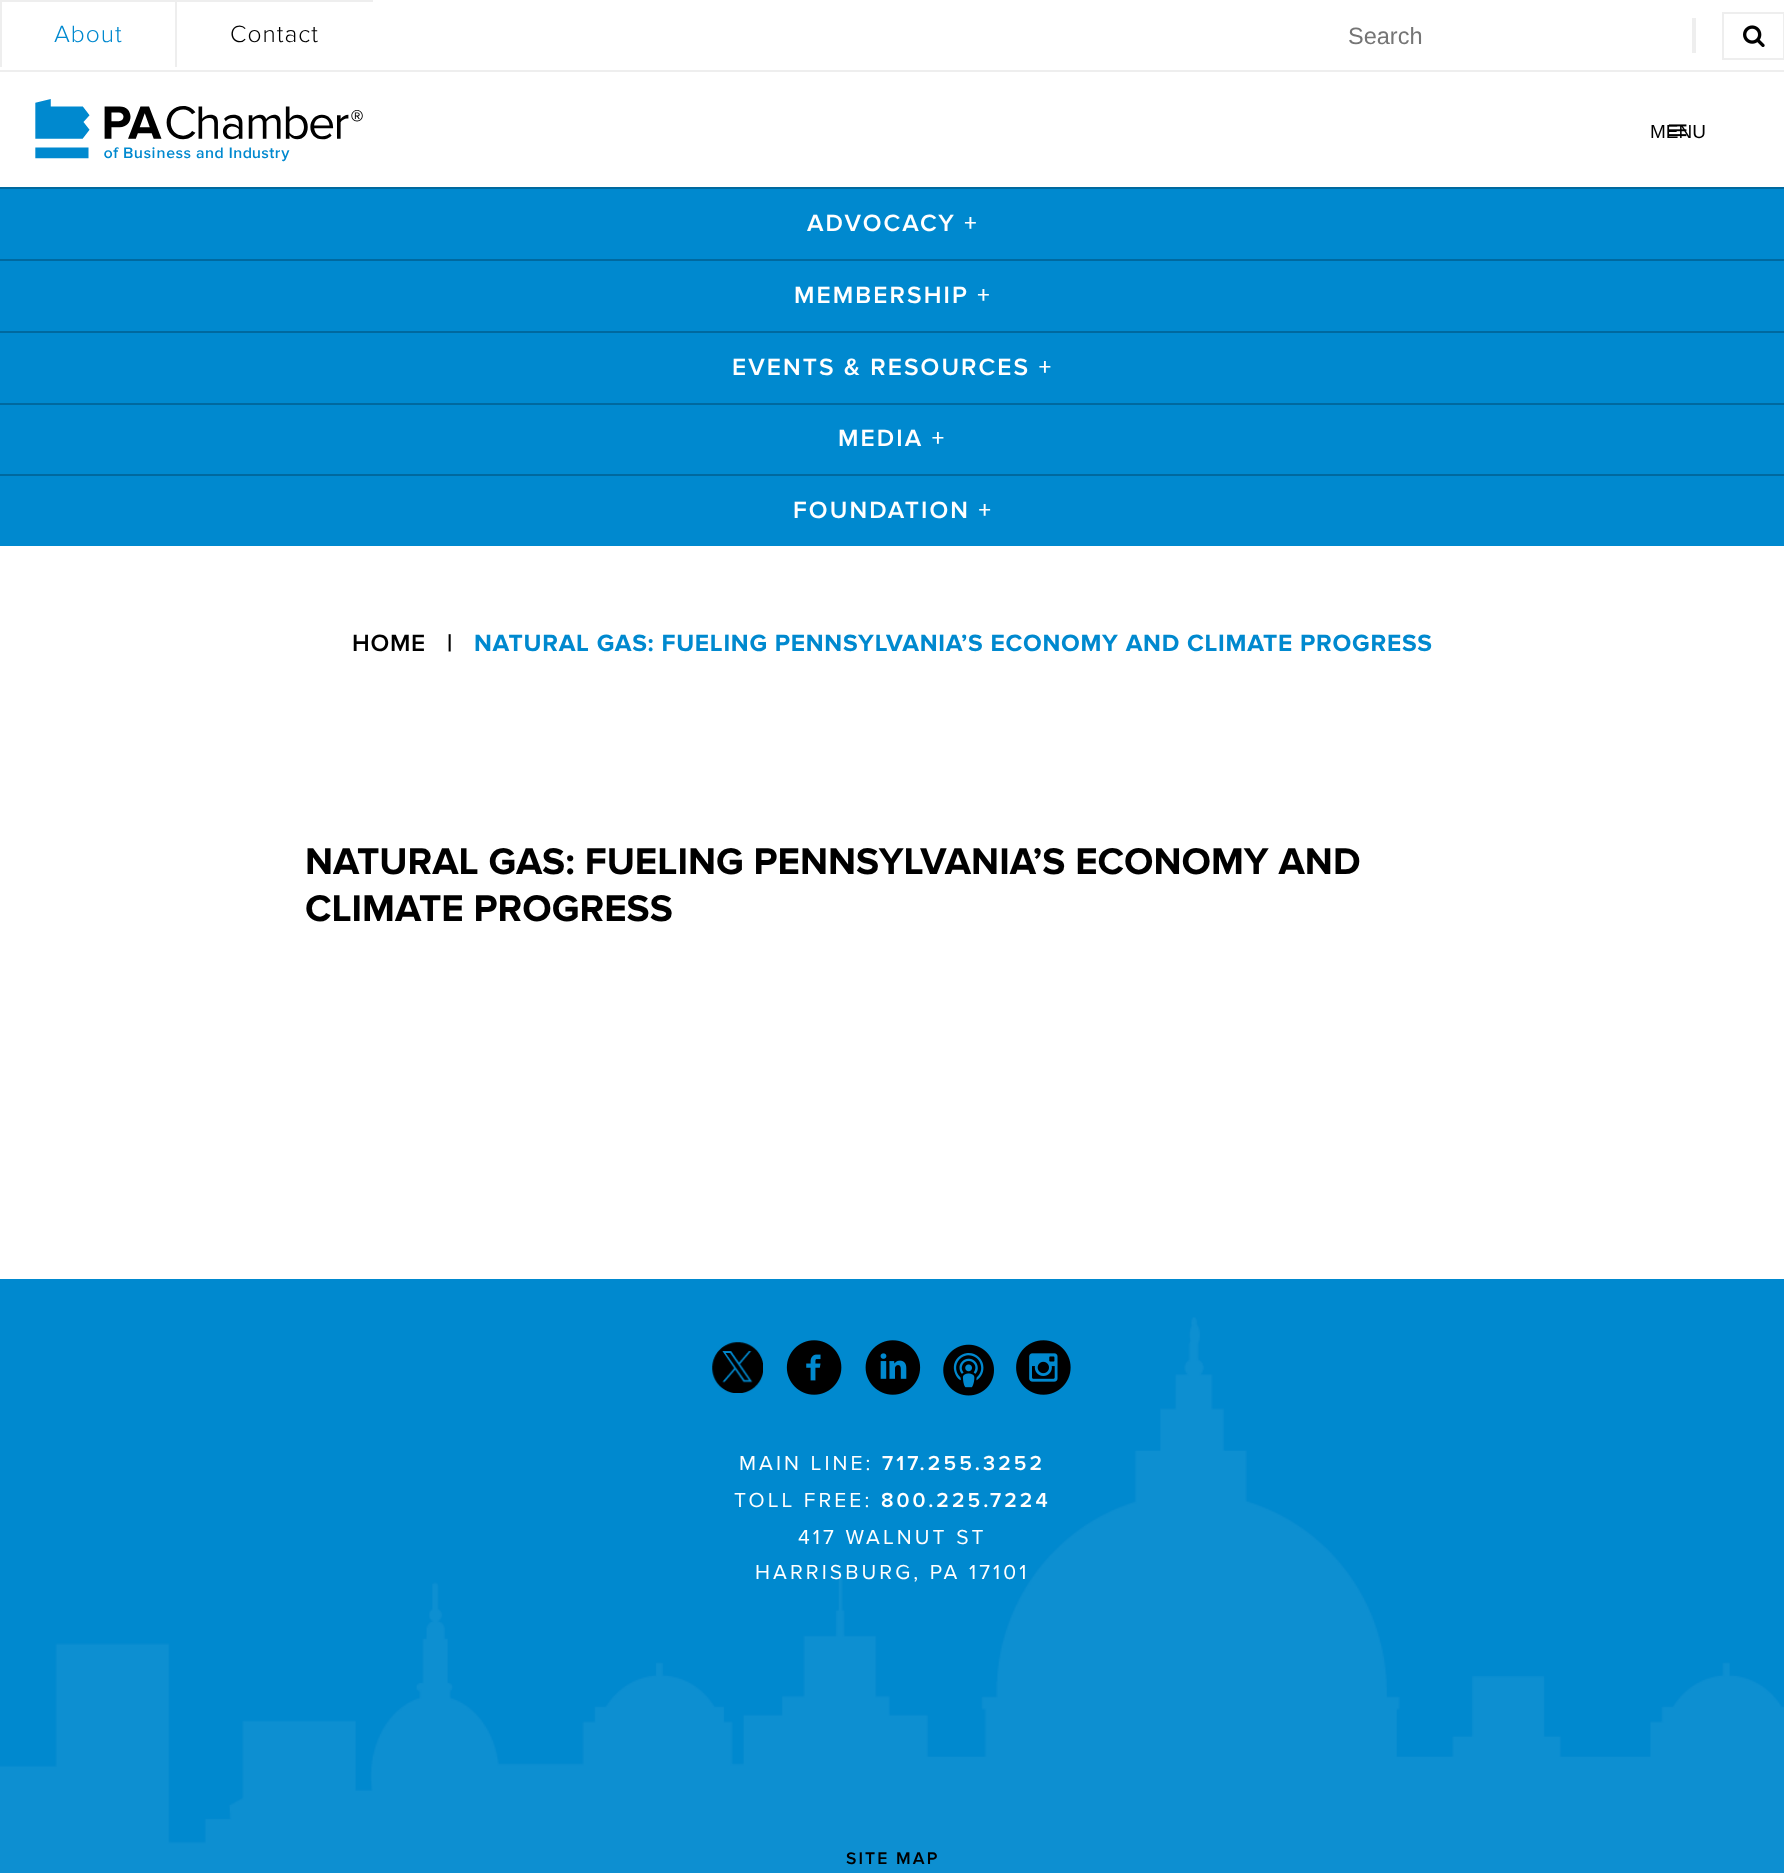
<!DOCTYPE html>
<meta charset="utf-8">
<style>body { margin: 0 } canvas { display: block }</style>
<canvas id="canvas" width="1784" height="1873"></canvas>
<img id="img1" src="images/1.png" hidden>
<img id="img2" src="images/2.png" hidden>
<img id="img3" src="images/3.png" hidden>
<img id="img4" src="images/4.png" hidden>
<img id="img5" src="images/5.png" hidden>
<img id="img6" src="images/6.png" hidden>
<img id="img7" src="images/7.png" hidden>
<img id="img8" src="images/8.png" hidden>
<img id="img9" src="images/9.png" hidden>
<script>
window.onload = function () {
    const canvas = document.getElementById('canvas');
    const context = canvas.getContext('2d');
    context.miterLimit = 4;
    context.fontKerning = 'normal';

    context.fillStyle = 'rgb(255, 255, 255)';
    context.fillRect(0, 0, 1784, 1873);
    context.fillStyle = 'rgb(238, 238, 238)';
    context.fillRect(0, 70, 1784, 2);
    context.fillRect(0, 0, 373, 2);
    context.fillRect(0, 0, 2, 67);
    context.fillRect(175, 0, 2, 67);
    context.fillRect(1692, 18, 4, 35);
    context.strokeStyle = 'rgb(238, 238, 238)';
    context.lineWidth = 2;
    context.strokeRect(1723, 13, 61, 46);
    context.drawImage(document.getElementById('img1'), 1743, 25, 22, 22);
    context.drawImage(document.getElementById('img2'), 35, 99, 328, 63);
    context.drawImage(document.getElementById('img3'), 1668, 124, 19, 13);
    context.fillStyle = 'rgb(0, 137, 207)';
    context.fillRect(0, 189, 1784, 357);
    context.fillStyle = 'rgb(0, 105, 159)';
    context.fillRect(0, 187, 1784, 2);
    context.fillRect(0, 259, 1784, 2);
    context.fillRect(0, 331, 1784, 2);
    context.fillRect(0, 403, 1784, 2);
    context.fillRect(0, 474, 1784, 2);
    context.fillStyle = 'rgb(0, 137, 207)';
    context.fillRect(0, 1279, 1784, 594);
    context.drawImage(document.getElementById('img4'), 0, 1317, 1784, 556);
    context.drawImage(document.getElementById('img5'), 712, 1342, 51, 51);
    context.drawImage(document.getElementById('img6'), 786, 1340, 56, 55);
    context.drawImage(document.getElementById('img7'), 865, 1340, 56, 55);
    context.drawImage(document.getElementById('img8'), 943, 1344, 51, 52);
    context.drawImage(document.getElementById('img9'), 1016, 1340, 55, 55);
    context.letterSpacing = '1px';
    context.font = '300 24.5px Proxima Nova';
    context.fillText('About', 54, 42);
    context.fillStyle = 'rgb(0, 0, 0)';
    context.fillText('Contact', 230, 42);
    context.letterSpacing = '0px';
    context.font = '23.5px Liberation Sans';
    context.fillStyle = 'rgb(117, 117, 117)';
    context.fillText('Search', 1348, 44);
    context.font = '19px Liberation Sans';
    context.fillStyle = 'rgb(0, 0, 0)';
    context.fillText('MENU', 1650, 138);
    context.letterSpacing = '2.1px';
    context.font = '600 24.5px Proxima Nova';
    context.fillStyle = 'rgb(255, 255, 255)';
    context.fillText('ADVOCACY +', 807, 231);
    context.fillText('MEMBERSHIP +', 794, 303);
    context.fillText('EVENTS & RESOURCES +', 732, 375);
    context.fillText('MEDIA +', 838, 446);
    context.fillText('FOUNDATION +', 793, 518);
    context.letterSpacing = '0.73px';
    context.fillStyle = 'rgb(0, 0, 0)';
    context.fillText('HOME', 352, 651);
    context.font = 'bold 24.5px Proxima Nova';
    context.fillText('|', 447, 651);
    context.fillStyle = 'rgb(0, 137, 207)';
    context.fillText('NATURAL GAS: FUELING PENNSYLVANIA’S ECONOMY AND CLIMATE PROGRESS', 474, 651);
    context.letterSpacing = '0px';
    context.font = 'bold 38.5px Proxima Nova';
    context.fillStyle = 'rgb(0, 0, 0)';
    context.fillText('NATURAL GAS: FUELING PENNSYLVANIA’S ECONOMY AND', 305, 874);
    context.fillText('CLIMATE PROGRESS', 305, 921);
    context.letterSpacing = '3.1px';
    context.font = '21px Proxima Nova';
    context.fillStyle = 'rgb(255, 255, 255)';
    context.fillText('MAIN LINE:', 739, 1470);
    context.font = '600 21px Proxima Nova';
    context.fillText('717.255.3252', 882, 1470);
    context.font = '21px Proxima Nova';
    context.fillText('TOLL FREE:', 734, 1507);
    context.font = '600 21px Proxima Nova';
    context.fillText('800.225.7224', 881, 1507);
    context.font = '21px Proxima Nova';
    context.fillText('417 WALNUT ST', 798, 1544);
    context.fillText('HARRISBURG, PA 17101', 755, 1579);
    context.letterSpacing = '2.1px';
    context.font = '600 17.5px Proxima Nova';
    context.fillStyle = 'rgb(0, 0, 0)';
    context.fillText('SITE MAP', 846, 1864);
};
</script>
